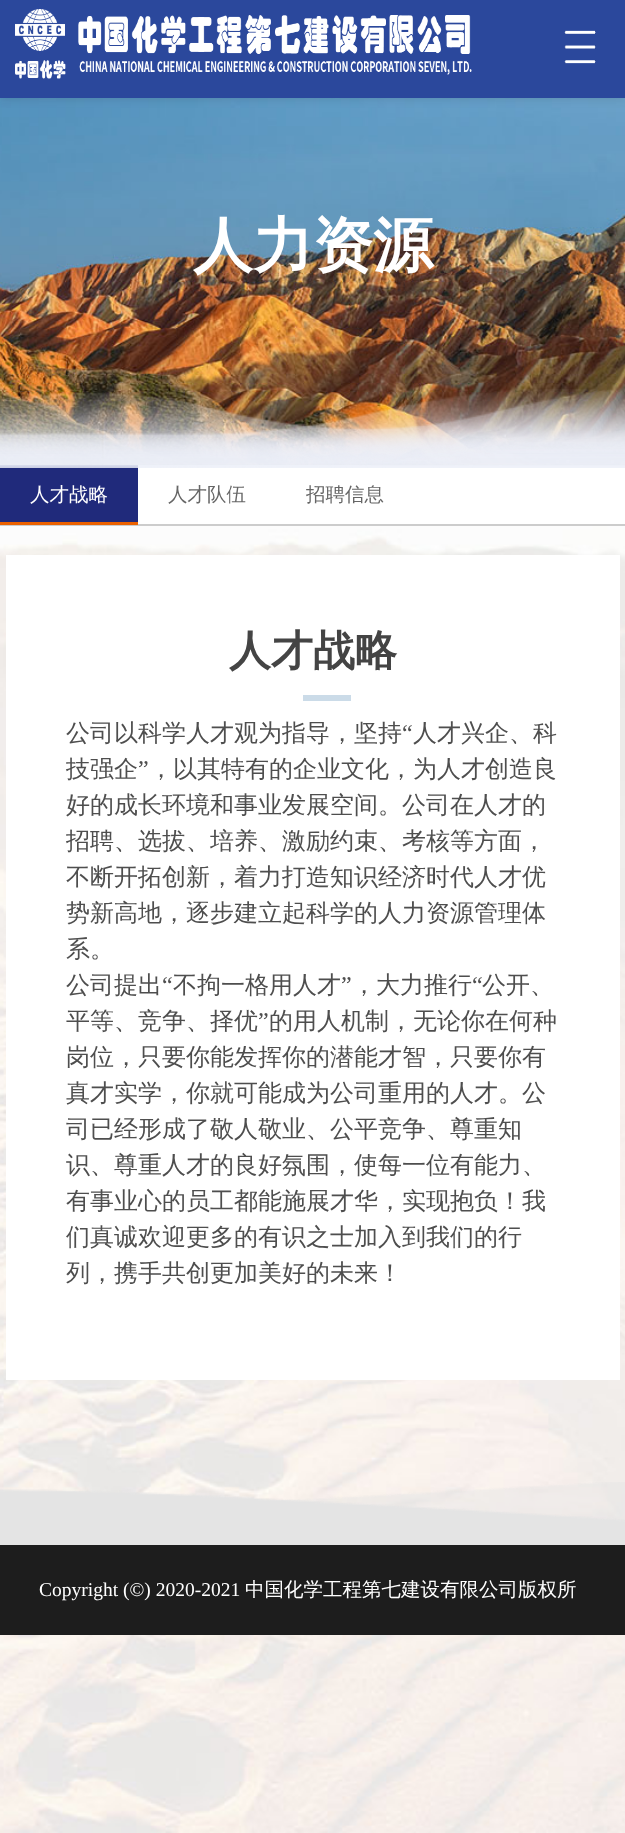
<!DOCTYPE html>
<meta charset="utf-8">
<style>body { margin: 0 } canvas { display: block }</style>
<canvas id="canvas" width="625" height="1833"></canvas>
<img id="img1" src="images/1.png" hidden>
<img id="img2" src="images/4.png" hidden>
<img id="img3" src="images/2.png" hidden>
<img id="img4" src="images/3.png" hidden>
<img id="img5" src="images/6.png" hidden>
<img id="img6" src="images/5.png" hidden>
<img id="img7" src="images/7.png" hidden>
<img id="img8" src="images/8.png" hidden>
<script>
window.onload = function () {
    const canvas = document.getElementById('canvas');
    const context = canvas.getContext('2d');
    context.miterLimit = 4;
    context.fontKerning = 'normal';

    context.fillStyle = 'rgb(255, 255, 255)';
    context.fillRect(0, 0, 625, 1833);
    context.drawImage(document.getElementById('img1'), 0, 526, 625, 1307);
    context.drawImage(document.getElementById('img2'), 0, 98, 625, 367);
    context.fillStyle = 'rgba(0, 0, 0, 0.12)';
    context.filter = 'blur(4.5px)';
    context.beginPath();
    context.rect(0, 2, 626, 97);
    context.fill();
    context.filter = 'none';
    context.fillStyle = 'rgb(43, 72, 156)';
    context.fillRect(0, 0, 625, 98);
    context.drawImage(document.getElementById('img3'), 15, 9, 457, 70);
    context.drawImage(document.getElementById('img4'), 564, 30, 32, 34);
    context.fillStyle = 'rgb(32, 42, 123)';
    context.fillRect(0, 465, 138, 57);
    context.drawImage(document.getElementById('img5'), 0, 389, 625, 79);
    context.drawImage(document.getElementById('img6'), 0, 388, 625, 77);
    context.fillStyle = 'rgb(204, 204, 204)';
    context.fillRect(0, 524, 625, 2);
    context.fillStyle = 'rgb(235, 97, 0)';
    context.fillRect(0, 522, 138, 3);
    context.fillStyle = 'rgb(255, 255, 255)';
    context.fillRect(6, 555, 614, 825);
    context.fillStyle = 'rgb(203, 219, 232)';
    context.fillRect(303, 695, 48, 6);
    context.drawImage(document.getElementById('img7'), 264, 1482, 361, 40);
    context.drawImage(document.getElementById('img8'), 0, 1489, 625, 56);
    context.fillStyle = 'rgb(29, 29, 29)';
    context.fillRect(0, 1545, 625, 90);
    context.font = 'bold 60px WenQuanYi Zen Hei';
    context.fillStyle = 'rgb(255, 255, 255)';
    context.fillText('人力资源', 193, 266);
    context.font = '500 19.5px WenQuanYi Zen Hei';
    context.fillText('人才战略', 30, 501);
    context.fillStyle = 'rgb(102, 102, 102)';
    context.fillText('人才队伍', 168, 501);
    context.fillText('招聘信息', 306, 501);
    context.font = 'bold 42px WenQuanYi Zen Hei';
    context.fillStyle = 'rgb(68, 68, 68)';
    context.fillText('人才战略', 229, 665);
    context.font = '500 24px WenQuanYi Zen Hei';
    context.fillStyle = 'rgb(78, 78, 78)';
    context.fillText('公司以科学人才观为指导，坚持', 66, 741);
    context.font = '24px Liberation Serif';
    context.fillText('“', 402, 741);
    context.font = '500 24px WenQuanYi Zen Hei';
    context.fillText('人才兴企、科', 413, 741);
    context.fillText('技强企', 66, 777);
    context.font = '24px Liberation Serif';
    context.fillText('”', 138, 777);
    context.font = '500 24px WenQuanYi Zen Hei';
    context.fillText('，以其特有的企业文化，为人才创造良', 149, 777);
    context.fillText('好的成长环境和事业发展空间。公司在人才的', 66, 813);
    context.fillText('招聘、选拔、培养、激励约束、考核等方面，', 66, 849);
    context.fillText('不断开拓创新，着力打造知识经济时代人才优', 66, 885);
    context.fillText('势新高地，逐步建立起科学的人力资源管理体', 66, 921);
    context.fillText('系。', 66, 957);
    context.fillText('公司提出', 66, 993);
    context.font = '24px Liberation Serif';
    context.fillText('“', 162, 993);
    context.font = '500 24px WenQuanYi Zen Hei';
    context.fillText('不拘一格用人才', 173, 993);
    context.font = '24px Liberation Serif';
    context.fillText('”', 341, 993);
    context.font = '500 24px WenQuanYi Zen Hei';
    context.fillText('，大力推行', 352, 993);
    context.font = '24px Liberation Serif';
    context.fillText('“', 472, 993);
    context.font = '500 24px WenQuanYi Zen Hei';
    context.fillText('公开、', 482, 993);
    context.fillText('平等、竞争、择优', 66, 1029);
    context.font = '24px Liberation Serif';
    context.fillText('”', 258, 1029);
    context.font = '500 24px WenQuanYi Zen Hei';
    context.fillText('的用人机制，无论你在何种', 269, 1029);
    context.fillText('岗位，只要你能发挥你的潜能才智，只要你有', 66, 1065);
    context.fillText('真才实学，你就可能成为公司重用的人才。公', 66, 1101);
    context.fillText('司已经形成了敬人敬业、公平竞争、尊重知', 66, 1137);
    context.fillText('识、尊重人才的良好氛围，使每一位有能力、', 66, 1173);
    context.fillText('有事业心的员工都能施展才华，实现抱负！我', 66, 1209);
    context.fillText('们真诚欢迎更多的有识之士加入到我们的行', 66, 1245);
    context.fillText('列，携手共创更加美好的未来！', 66, 1281);
    context.font = '19.5px Liberation Serif';
    context.fillStyle = 'rgb(255, 255, 255)';
    context.fillText('Copyright (©) 2020-2021', 39, 1596);
    context.font = '500 19.5px WenQuanYi Zen Hei';
    context.fillText('中国化学工程第七建设有限公司版权所', 245, 1596);
};
</script>
